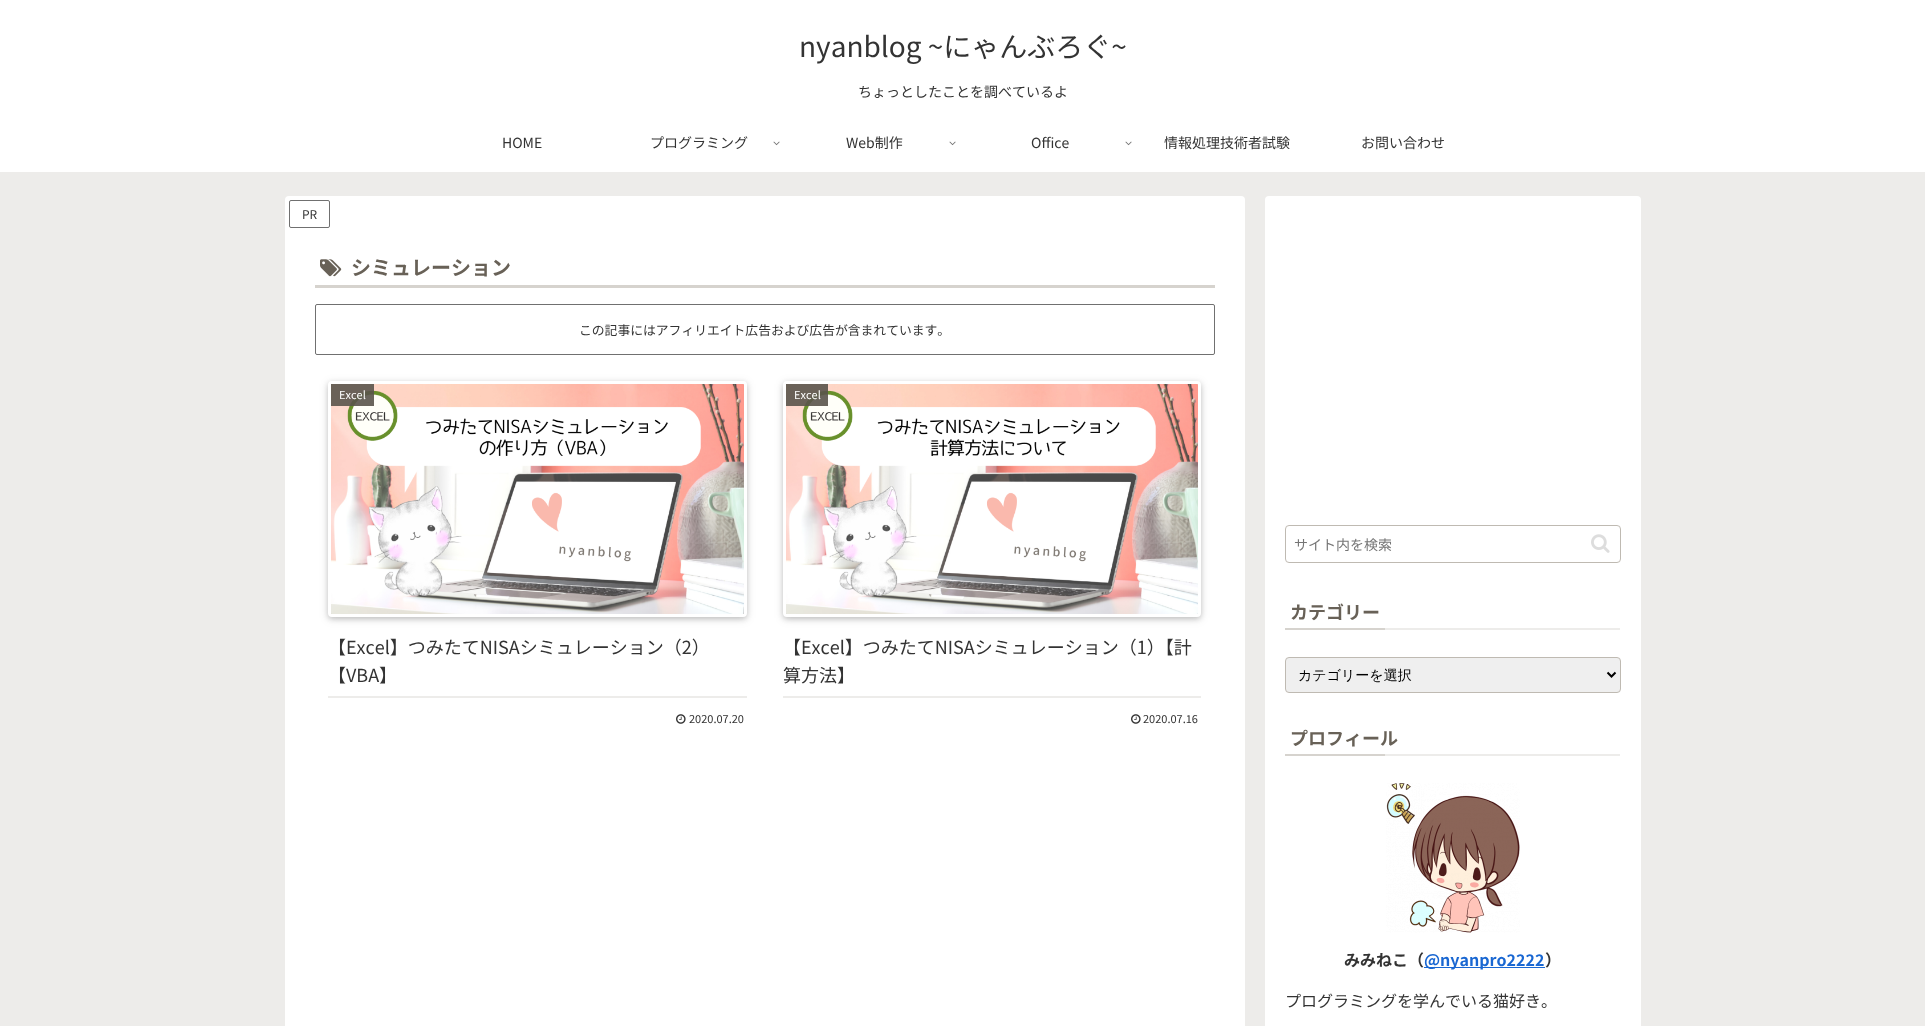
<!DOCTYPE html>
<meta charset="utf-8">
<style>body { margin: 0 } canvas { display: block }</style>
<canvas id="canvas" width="1925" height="1026"></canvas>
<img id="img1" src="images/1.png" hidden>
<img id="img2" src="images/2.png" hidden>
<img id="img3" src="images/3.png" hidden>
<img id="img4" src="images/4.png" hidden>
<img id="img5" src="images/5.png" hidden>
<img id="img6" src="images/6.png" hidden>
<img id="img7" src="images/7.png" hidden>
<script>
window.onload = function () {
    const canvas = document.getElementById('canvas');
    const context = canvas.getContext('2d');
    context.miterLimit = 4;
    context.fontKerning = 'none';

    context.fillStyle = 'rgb(237, 236, 234)';
    context.fillRect(0, 0, 1925, 1026);
    context.fillStyle = 'rgb(255, 255, 255)';
    context.fillRect(0, 0, 1925, 172);
    context.drawImage(document.getElementById('img1'), 773, 141, 7, 5);
    context.drawImage(document.getElementById('img1'), 949, 141, 7, 5);
    context.drawImage(document.getElementById('img1'), 1125, 141, 7, 5);
    context.beginPath();
    context.roundRect(285, 196, 960, 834, 4);
    context.fill();
    context.beginPath();
    context.roundRect(289.5, 200.5, 40, 27, 1.5);
    context.strokeStyle = 'rgb(112, 112, 112)';
    context.stroke();
    context.fillStyle = 'rgb(214, 211, 206)';
    context.fillRect(315, 285, 900, 3);
    context.drawImage(document.getElementById('img2'), 320, 259, 22, 18);
    context.beginPath();
    context.roundRect(315.5, 304.5, 899, 50, 1.5);
    context.stroke();
    context.fillStyle = 'rgba(0, 0, 0, 0.12)';
    context.filter = 'blur(5px)';
    context.beginPath();
    context.roundRect(328, 383, 419, 236, 4);
    context.fill();
    context.filter = 'none';
    context.fillStyle = 'rgba(0, 0, 0, 0.16)';
    context.filter = 'blur(2.5px)';
    context.beginPath();
    context.roundRect(328, 383, 419, 236, 4);
    context.fill();
    context.filter = 'none';
    context.beginPath();
    context.roundRect(329.5, 382.5, 416, 233, 2.5);
    context.strokeStyle = 'rgb(255, 255, 255)';
    context.lineWidth = 3;
    context.stroke();
    context.drawImage(document.getElementById('img3'), 331, 384, 413, 230);
    context.fillStyle = 'rgba(90, 84, 75, 0.9)';
    context.fillRect(331, 384, 43, 22);
    context.fillStyle = 'rgb(237, 236, 234)';
    context.fillRect(328, 696, 419, 2);
    context.drawImage(document.getElementById('img4'), 676, 714, 10, 10);
    context.fillStyle = 'rgba(0, 0, 0, 0.12)';
    context.filter = 'blur(5px)';
    context.beginPath();
    context.roundRect(783, 383, 418, 236, 4);
    context.fill();
    context.filter = 'none';
    context.fillStyle = 'rgba(0, 0, 0, 0.16)';
    context.filter = 'blur(2.5px)';
    context.beginPath();
    context.roundRect(783, 383, 418, 236, 4);
    context.fill();
    context.filter = 'none';
    context.beginPath();
    context.roundRect(784.5, 382.5, 415, 233, 2.5);
    context.stroke();
    context.drawImage(document.getElementById('img5'), 786, 384, 412, 230);
    context.fillStyle = 'rgba(90, 84, 75, 0.9)';
    context.fillRect(786, 384, 42, 22);
    context.fillStyle = 'rgb(237, 236, 234)';
    context.fillRect(783, 696, 418, 2);
    context.drawImage(document.getElementById('img4'), 1131, 714, 10, 10);
    context.fillStyle = 'rgb(255, 255, 255)';
    context.beginPath();
    context.roundRect(1265, 196, 376, 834, 4);
    context.fill();
    context.beginPath();
    context.roundRect(1285.5, 525.5, 335, 37, 3.5);
    context.strokeStyle = 'rgb(191, 186, 178)';
    context.lineWidth = 1;
    context.stroke();
    context.drawImage(document.getElementById('img6'), 1591, 534, 19, 19);
    context.fillStyle = 'rgb(237, 236, 234)';
    context.fillRect(1385, 628, 235, 2);
    context.fillStyle = 'rgb(214, 211, 206)';
    context.fillRect(1285, 628, 100, 2);
    context.fillStyle = 'rgb(239, 239, 239)';
    context.beginPath();
    context.roundRect(1285.5, 657.5, 335, 35, 3.5);
    context.fill();
    context.stroke();
    context.beginPath();
    context.moveTo(1607.5, 672.5);
    context.lineTo(1611.5, 676.5);
    context.lineTo(1615.5, 672.5);
    context.strokeStyle = 'rgb(0, 0, 0)';
    context.lineWidth = 2;
    context.stroke();
    context.fillStyle = 'rgb(237, 236, 234)';
    context.fillRect(1385, 754, 235, 2);
    context.fillStyle = 'rgb(214, 211, 206)';
    context.fillRect(1285, 754, 100, 2);
    context.drawImage(document.getElementById('img7'), 1386, 783, 134, 150);
    context.fillStyle = 'rgb(25, 103, 210)';
    context.fillRect(1424, 967, 121, 1);
    context.font = '28px Noto Sans JP';
    context.fillStyle = 'rgb(51, 51, 51)';
    context.fillText('nyanblog ~にゃんぶろぐ~', 799, 57);
    context.font = '14px Noto Sans JP';
    context.fillText('ちょっとしたことを調べているよ', 858, 97);
    context.fillText('HOME', 502, 148);
    context.fillText('プログラミング', 650, 148);
    context.fillText('Web制作', 846, 148);
    context.fillText('Office', 1031, 148);
    context.fillText('情報処理技術者試験', 1164, 148);
    context.fillText('お問い合わせ', 1361, 148);
    context.font = '12px Noto Sans JP';
    context.fillText('PR', 302, 219);
    context.font = 'bold 20px Noto Sans JP';
    context.fillStyle = 'rgb(104, 97, 87)';
    context.fillText('シミュレーション', 351, 275);
    context.font = '12.8px Noto Sans JP';
    context.fillStyle = 'rgb(51, 51, 51)';
    context.fillText('この記事にはアフィリエイト広告および広告が含まれています。', 579, 335);
    context.font = '11px Noto Sans JP';
    context.fillStyle = 'rgb(255, 255, 255)';
    context.fillText('Excel', 339, 399);
    context.font = '18px Noto Sans JP';
    context.fillStyle = 'rgb(51, 51, 51)';
    context.fillText('【Excel】つみたてNISAシミュレーション（2）', 328, 654);
    context.fillText('【VBA】', 328, 682);
    context.font = '11px Noto Sans JP';
    context.fillText('2020.07.20', 689, 723);
    context.fillStyle = 'rgb(255, 255, 255)';
    context.fillText('Excel', 794, 399);
    context.font = '18px Noto Sans JP';
    context.fillStyle = 'rgb(51, 51, 51)';
    context.fillText('【Excel】つみたてNISAシミュレーション（1）【計', 783, 654);
    context.fillText('算方法】', 783, 682);
    context.font = '11px Noto Sans JP';
    context.fillText('2020.07.16', 1143, 723);
    context.font = '14px Noto Sans JP';
    context.fillStyle = 'rgb(117, 117, 117)';
    context.fillText('サイト内を検索', 1294, 550);
    context.font = 'bold 18px Noto Sans JP';
    context.fillStyle = 'rgb(104, 97, 87)';
    context.fillText('カテゴリー', 1290, 619);
    context.font = '500 14px WenQuanYi Zen Hei';
    context.fillStyle = 'rgb(0, 0, 0)';
    context.fillText('カテゴリーを選択', 1298, 680);
    context.font = 'bold 18px Noto Sans JP';
    context.fillStyle = 'rgb(104, 97, 87)';
    context.fillText('プロフィール', 1290, 745);
    context.font = 'bold 16px Noto Sans JP';
    context.fillStyle = 'rgb(51, 51, 51)';
    context.fillText('みみねこ（', 1344, 966);
    context.fillStyle = 'rgb(25, 103, 210)';
    context.fillText('@nyanpro2222', 1424, 966);
    context.fillStyle = 'rgb(51, 51, 51)';
    context.fillText('）', 1545, 966);
    context.font = '16px Noto Sans JP';
    context.fillText('プログラミングを学んでいる猫好き。', 1285, 1007);
};
</script>
